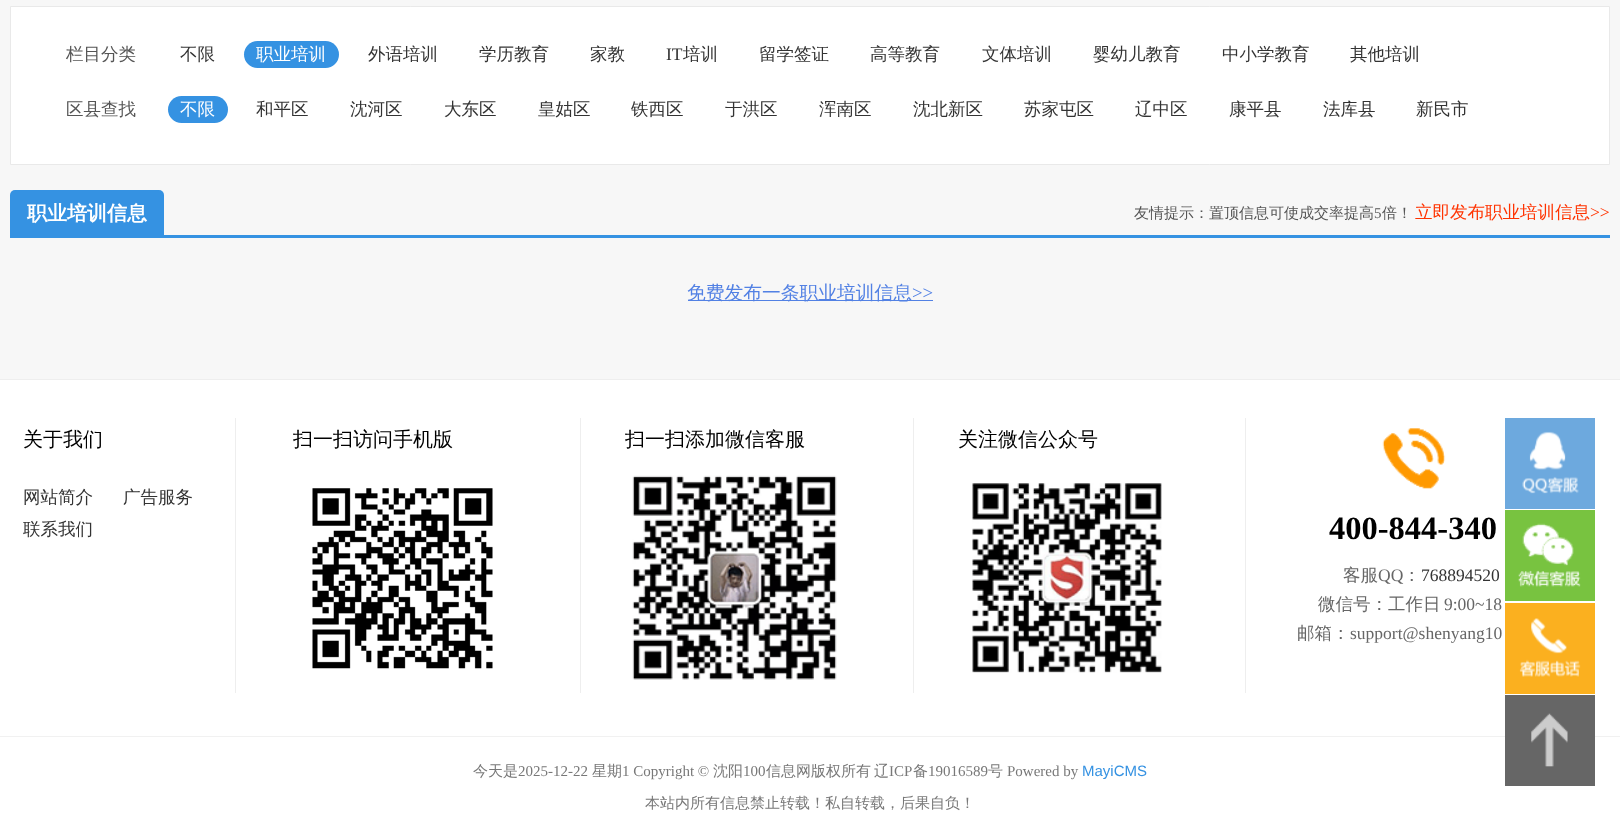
<!DOCTYPE html>
<meta charset="utf-8">
<style>body { margin: 0 } canvas { display: block }</style>
<canvas id="canvas" width="1620" height="837"></canvas>
<img id="img1" src="images/1.png" hidden>
<img id="img2" src="images/2.png" hidden>
<img id="img3" src="images/3.png" hidden>
<img id="img4" src="images/4.png" hidden>
<img id="img5" src="images/5.png" hidden>
<img id="img6" src="images/6.png" hidden>
<img id="img7" src="images/7.png" hidden>
<img id="img8" src="images/8.png" hidden>
<script>
window.onload = function () {
    const canvas = document.getElementById('canvas');
    const context = canvas.getContext('2d');
    context.miterLimit = 4;
    context.fontKerning = 'normal';

    context.fillStyle = 'rgb(255, 255, 255)';
    context.fillRect(0, 0, 1620, 837);
    context.fillStyle = 'rgb(247, 247, 247)';
    context.fillRect(0, 0, 1620, 379);
    context.fillStyle = 'rgb(255, 255, 255)';
    context.beginPath();
    context.rect(10.5, 6.5, 1599, 158);
    context.fill();
    context.strokeStyle = 'rgb(233, 233, 233)';
    context.stroke();
    context.fillStyle = 'rgb(53, 146, 226)';
    context.beginPath();
    context.roundRect(244, 41, 95, 27, 13.5);
    context.fill();
    context.beginPath();
    context.roundRect(168, 96, 60, 27, 13.5);
    context.fill();
    context.fillRect(164, 235, 1446, 3);
    context.beginPath();
    context.roundRect(10, 190, 154, 48, [5, 5, 0, 0]);
    context.fill();
    context.fillStyle = 'rgb(82, 129, 228)';
    context.fillRect(688, 300, 245, 1);
    context.fillStyle = 'rgb(238, 238, 238)';
    context.fillRect(0, 379, 1620, 1);
    context.fillRect(235, 418, 1, 275);
    context.fillRect(580, 418, 1, 275);
    context.drawImage(document.getElementById('img1'), 312, 488, 181, 181);
    context.fillRect(913, 418, 1, 275);
    context.drawImage(document.getElementById('img2'), 632, 475, 205, 205);
    context.fillRect(1245, 418, 1, 275);
    context.drawImage(document.getElementById('img3'), 972, 483, 190, 190);
    context.drawImage(document.getElementById('img4'), 1382, 428, 64, 61);
    context.fillStyle = 'rgb(241, 241, 241)';
    context.fillRect(0, 736, 1620, 1);
    context.fillStyle = 'rgb(109, 169, 222)';
    context.fillRect(1505, 418, 90, 91);
    context.drawImage(document.getElementById('img5'), 1522, 431, 57, 63);
    context.fillStyle = 'rgb(120, 195, 64)';
    context.fillRect(1505, 510, 90, 91);
    context.drawImage(document.getElementById('img6'), 1518, 523, 63, 64);
    context.fillStyle = 'rgb(251, 176, 31)';
    context.fillRect(1505, 603, 90, 91);
    context.drawImage(document.getElementById('img7'), 1519, 618, 62, 59);
    context.fillStyle = 'rgb(102, 102, 102)';
    context.fillRect(1505, 695, 90, 91);
    context.drawImage(document.getElementById('img8'), 1531, 713, 37, 54);
    context.font = '500 17.5px WenQuanYi Zen Hei';
    context.fillStyle = 'rgb(85, 85, 85)';
    context.fillText('栏目分类', 66, 60);
    context.fillStyle = 'rgb(51, 51, 51)';
    context.fillText('不限', 180, 60);
    context.fillStyle = 'rgb(255, 255, 255)';
    context.fillText('职业培训', 256, 60);
    context.fillStyle = 'rgb(51, 51, 51)';
    context.fillText('外语培训', 368, 60);
    context.fillText('学历教育', 479, 60);
    context.fillText('家教', 590, 60);
    context.font = '17.5px Liberation Serif';
    context.fillText('IT', 666, 60);
    context.font = '500 17.5px WenQuanYi Zen Hei';
    context.fillText('培训', 683, 60);
    context.fillText('留学签证', 759, 60);
    context.fillText('高等教育', 870, 60);
    context.fillText('文体培训', 982, 60);
    context.fillText('婴幼儿教育', 1093, 60);
    context.fillText('中小学教育', 1222, 60);
    context.fillText('其他培训', 1350, 60);
    context.fillStyle = 'rgb(85, 85, 85)';
    context.fillText('区县查找', 66, 115);
    context.fillStyle = 'rgb(255, 255, 255)';
    context.fillText('不限', 180, 115);
    context.fillStyle = 'rgb(51, 51, 51)';
    context.fillText('和平区', 256, 115);
    context.fillText('沈河区', 350, 115);
    context.fillText('大东区', 444, 115);
    context.fillText('皇姑区', 538, 115);
    context.fillText('铁西区', 631, 115);
    context.fillText('于洪区', 725, 115);
    context.fillText('浑南区', 819, 115);
    context.fillText('沈北新区', 913, 115);
    context.fillText('苏家屯区', 1024, 115);
    context.fillText('辽中区', 1135, 115);
    context.fillText('康平县', 1229, 115);
    context.fillText('法库县', 1323, 115);
    context.fillText('新民市', 1416, 115);
    context.font = 'bold 20px WenQuanYi Zen Hei';
    context.fillStyle = 'rgb(255, 255, 255)';
    context.fillText('职业培训信息', 27, 220);
    context.font = '500 15px WenQuanYi Zen Hei';
    context.fillStyle = 'rgb(85, 85, 85)';
    context.fillText('友情提示：置顶信息可使成交率提高', 1134, 218);
    context.font = '15px Liberation Serif';
    context.fillText('5', 1374, 218);
    context.font = '500 15px WenQuanYi Zen Hei';
    context.fillText('倍！', 1382, 218);
    context.font = '500 17.5px WenQuanYi Zen Hei';
    context.fillStyle = 'rgb(255, 51, 0)';
    context.fillText('立即发布职业培训信息', 1415, 218);
    context.font = '17.5px Liberation Serif';
    context.fillText('>>', 1590, 218);
    context.font = '500 18.75px WenQuanYi Zen Hei';
    context.fillStyle = 'rgb(82, 129, 228)';
    context.fillText('免费发布一条职业培训信息', 687, 299);
    context.font = '18.75px Liberation Serif';
    context.fillText('>>', 912, 299);
    context.font = '500 20px WenQuanYi Zen Hei';
    context.fillStyle = 'rgb(0, 0, 0)';
    context.fillText('关于我们', 23, 446);
    context.font = '500 17.5px WenQuanYi Zen Hei';
    context.fillStyle = 'rgb(51, 51, 51)';
    context.fillText('网站简介', 23, 503);
    context.fillText('广告服务', 123, 503);
    context.save();
    context.beginPath();
    context.rect(23, 514, 100, 32);
    context.clip();
    context.fillText('联系我们', 23, 535);
    context.restore();
    context.font = '500 20px WenQuanYi Zen Hei';
    context.fillStyle = 'rgb(0, 0, 0)';
    context.fillText('扫一扫访问手机版', 293, 446);
    context.fillText('扫一扫添加微信客服', 625, 446);
    context.fillText('关注微信公众号', 958, 446);
    context.font = 'bold 32.5px Liberation Serif';
    context.fillText('400-844-340', 1329, 539);
    context.font = '500 17.5px WenQuanYi Zen Hei';
    context.fillStyle = 'rgb(102, 102, 102)';
    context.fillText('客服', 1343, 581);
    context.font = '17.5px Liberation Serif';
    context.fillText('QQ', 1378, 581);
    context.font = '500 17.5px WenQuanYi Zen Hei';
    context.fillText('：', 1403, 581);
    context.font = '17.5px Liberation Serif';
    context.fillStyle = 'rgb(51, 51, 51)';
    context.fillText('768894520', 1421, 581);
    context.font = '500 17.5px WenQuanYi Zen Hei';
    context.fillStyle = 'rgb(102, 102, 102)';
    context.fillText('微信号：工作日', 1318, 610);
    context.font = '17.5px Liberation Serif';
    context.fillText('9:00~18', 1444, 610);
    context.font = '500 17.5px WenQuanYi Zen Hei';
    context.fillText('邮箱：', 1297, 639);
    context.font = '17.5px Liberation Serif';
    context.fillText('support@shenyang10', 1350, 639);
    context.font = '500 15px WenQuanYi Zen Hei';
    context.fillStyle = 'rgb(120, 120, 120)';
    context.fillText('今天是', 473, 776);
    context.font = '15px Liberation Serif';
    context.fillText('2025-12-22', 518, 776);
    context.font = '500 15px WenQuanYi Zen Hei';
    context.fillText('星期', 592, 776);
    context.font = '15px Liberation Serif';
    context.fillText('1 Copyright ©', 622, 776);
    context.font = '500 15px WenQuanYi Zen Hei';
    context.fillText('沈阳', 713, 776);
    context.font = '15px Liberation Serif';
    context.fillText('100', 743, 776);
    context.font = '500 15px WenQuanYi Zen Hei';
    context.fillText('信息网版权所有', 766, 776);
    context.fillText('辽', 874, 776);
    context.font = '15px Liberation Serif';
    context.fillText('ICP', 889, 776);
    context.font = '500 15px WenQuanYi Zen Hei';
    context.fillText('备', 913, 776);
    context.font = '15px Liberation Serif';
    context.fillText('19016589', 928, 776);
    context.font = '500 15px WenQuanYi Zen Hei';
    context.fillText('号', 988, 776);
    context.font = '15px Liberation Serif';
    context.fillText('Powered by', 1007, 776);
    context.font = '15px Liberation Sans';
    context.fillStyle = 'rgb(53, 146, 226)';
    context.fillText('MayiCMS', 1082, 776);
    context.font = '500 15px WenQuanYi Zen Hei';
    context.fillStyle = 'rgb(120, 120, 120)';
    context.fillText('本站内所有信息禁止转载！私自转载，后果自负！', 645, 808);
};
</script>
